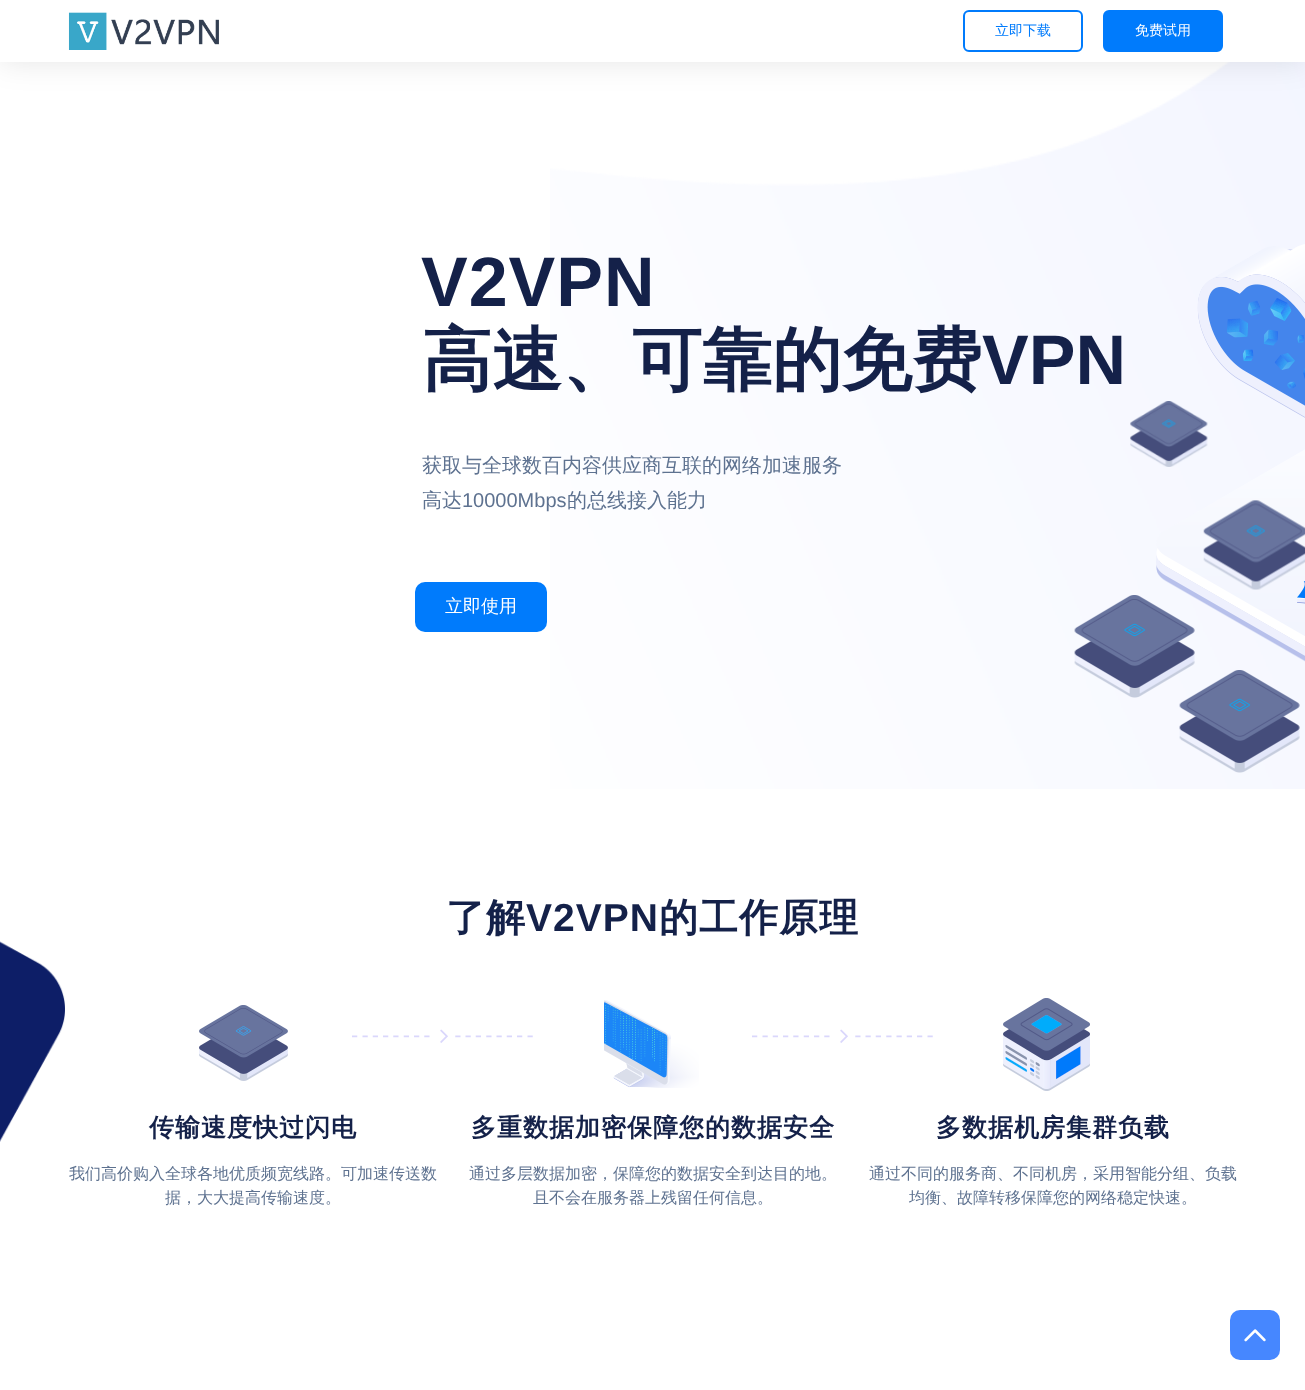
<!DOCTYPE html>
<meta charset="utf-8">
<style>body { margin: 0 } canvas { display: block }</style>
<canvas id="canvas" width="1305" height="1390"></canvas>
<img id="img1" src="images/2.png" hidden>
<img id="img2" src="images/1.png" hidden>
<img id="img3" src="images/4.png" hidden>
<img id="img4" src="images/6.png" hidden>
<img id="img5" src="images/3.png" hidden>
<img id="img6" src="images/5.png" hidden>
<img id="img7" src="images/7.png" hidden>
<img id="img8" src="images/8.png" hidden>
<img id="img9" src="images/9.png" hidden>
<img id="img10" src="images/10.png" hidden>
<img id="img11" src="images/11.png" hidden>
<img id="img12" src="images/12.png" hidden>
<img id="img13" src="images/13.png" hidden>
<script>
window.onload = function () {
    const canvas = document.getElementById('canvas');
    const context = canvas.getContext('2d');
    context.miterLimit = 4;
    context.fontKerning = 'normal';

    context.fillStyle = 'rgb(255, 255, 255)';
    context.fillRect(0, 0, 1305, 1390);
    context.drawImage(document.getElementById('img1'), 550, 62, 755, 727);
    context.fillStyle = 'rgba(0, 0, 0, 0.1)';
    context.filter = 'blur(15px)';
    context.beginPath();
    context.rect(0, 0, 1305, 62);
    context.fill();
    context.filter = 'none';
    context.fillStyle = 'rgb(255, 255, 255)';
    context.fillRect(0, 0, 1305, 62);
    context.drawImage(document.getElementById('img2'), 68, 12, 151, 38);
    context.beginPath();
    context.roundRect(964, 11, 118, 40, 5);
    context.strokeStyle = 'rgb(0, 123, 252)';
    context.lineWidth = 2;
    context.stroke();
    context.fillStyle = 'rgb(0, 123, 252)';
    context.beginPath();
    context.roundRect(1104, 11, 118, 40, 5);
    context.fill();
    context.stroke();
    context.drawImage(document.getElementById('img3'), 1130, 401, 78, 66);
    context.drawImage(document.getElementById('img4'), 1074, 595, 121, 103);
    context.drawImage(document.getElementById('img5'), 1156, 244, 149, 418);
    context.drawImage(document.getElementById('img6'), 1203, 500, 102, 90);
    context.beginPath();
    context.roundRect(415, 582, 132, 50, 10);
    context.fill();
    context.drawImage(document.getElementById('img7'), 1179, 670, 121, 103);
    context.drawImage(document.getElementById('img8'), 0, 941, 65, 201);
    context.drawImage(document.getElementById('img9'), 199, 1005, 89, 76);
    context.drawImage(document.getElementById('img10'), 352, 1029, 181, 14);
    context.drawImage(document.getElementById('img11'), 604, 1000, 95, 88);
    context.drawImage(document.getElementById('img10'), 752, 1029, 181, 14);
    context.drawImage(document.getElementById('img12'), 1003, 998, 87, 93);
    context.fillStyle = 'rgb(70, 135, 255)';
    context.beginPath();
    context.roundRect(1230, 1310, 50, 50, 10);
    context.fill();
    context.drawImage(document.getElementById('img13'), 1244, 1329, 22, 13);
    context.font = '500 14px WenQuanYi Zen Hei';
    context.fillStyle = 'rgb(0, 123, 252)';
    context.fillText('立即下载', 995, 35);
    context.fillStyle = 'rgb(255, 255, 255)';
    context.fillText('免费试用', 1135, 35);
    context.letterSpacing = '1px';
    context.font = 'bold 70px Liberation Sans';
    context.fillStyle = 'rgb(20, 33, 73)';
    context.fillText('V2VPN', 421, 306);
    context.letterSpacing = '0px';
    context.font = 'bold 70px WenQuanYi Zen Hei';
    context.fillText('高速、可靠的免费', 422, 384);
    context.font = 'bold 70px Liberation Sans';
    context.fillText('VPN', 982, 384);
    context.font = '500 20px WenQuanYi Zen Hei';
    context.fillStyle = 'rgb(94, 114, 144)';
    context.fillText('获取与全球数百内容供应商互联的网络加速服务', 422, 472);
    context.fillText('高达', 422, 507);
    context.font = '20px Liberation Sans';
    context.fillText('10000Mbps', 462, 507);
    context.font = '500 20px WenQuanYi Zen Hei';
    context.fillText('的总线接入能力', 567, 507);
    context.font = '500 18px WenQuanYi Zen Hei';
    context.fillStyle = 'rgb(255, 255, 255)';
    context.fillText('立即使用', 445, 612);
    context.letterSpacing = '1px';
    context.font = 'bold 39px WenQuanYi Zen Hei';
    context.fillStyle = 'rgb(20, 33, 73)';
    context.fillText('了解', 446, 931);
    context.font = 'bold 39px Liberation Sans';
    context.fillText('V2VPN', 526, 931);
    context.font = 'bold 39px WenQuanYi Zen Hei';
    context.fillText('的工作原理', 659, 931);
    context.font = 'bold 25px WenQuanYi Zen Hei';
    context.fillText('传输速度快过闪电', 149, 1136);
    context.letterSpacing = '0px';
    context.font = '500 16px WenQuanYi Zen Hei';
    context.fillStyle = 'rgb(94, 114, 144)';
    context.fillText('我们高价购入全球各地优质频宽线路。可加速传送数', 69, 1179);
    context.fillText('据，大大提高传输速度。', 165, 1203);
    context.letterSpacing = '1px';
    context.font = 'bold 25px WenQuanYi Zen Hei';
    context.fillStyle = 'rgb(20, 33, 73)';
    context.fillText('多重数据加密保障您的数据安全', 471, 1136);
    context.letterSpacing = '0px';
    context.font = '500 16px WenQuanYi Zen Hei';
    context.fillStyle = 'rgb(94, 114, 144)';
    context.fillText('通过多层数据加密，保障您的数据安全到达目的地。', 469, 1179);
    context.fillText('且不会在服务器上残留任何信息。', 533, 1203);
    context.letterSpacing = '1px';
    context.font = 'bold 25px WenQuanYi Zen Hei';
    context.fillStyle = 'rgb(20, 33, 73)';
    context.fillText('多数据机房集群负载', 936, 1136);
    context.letterSpacing = '0px';
    context.font = '500 16px WenQuanYi Zen Hei';
    context.fillStyle = 'rgb(94, 114, 144)';
    context.fillText('通过不同的服务商、不同机房，采用智能分组、负载', 869, 1179);
    context.fillText('均衡、故障转移保障您的网络稳定快速。', 909, 1203);
};
</script>
